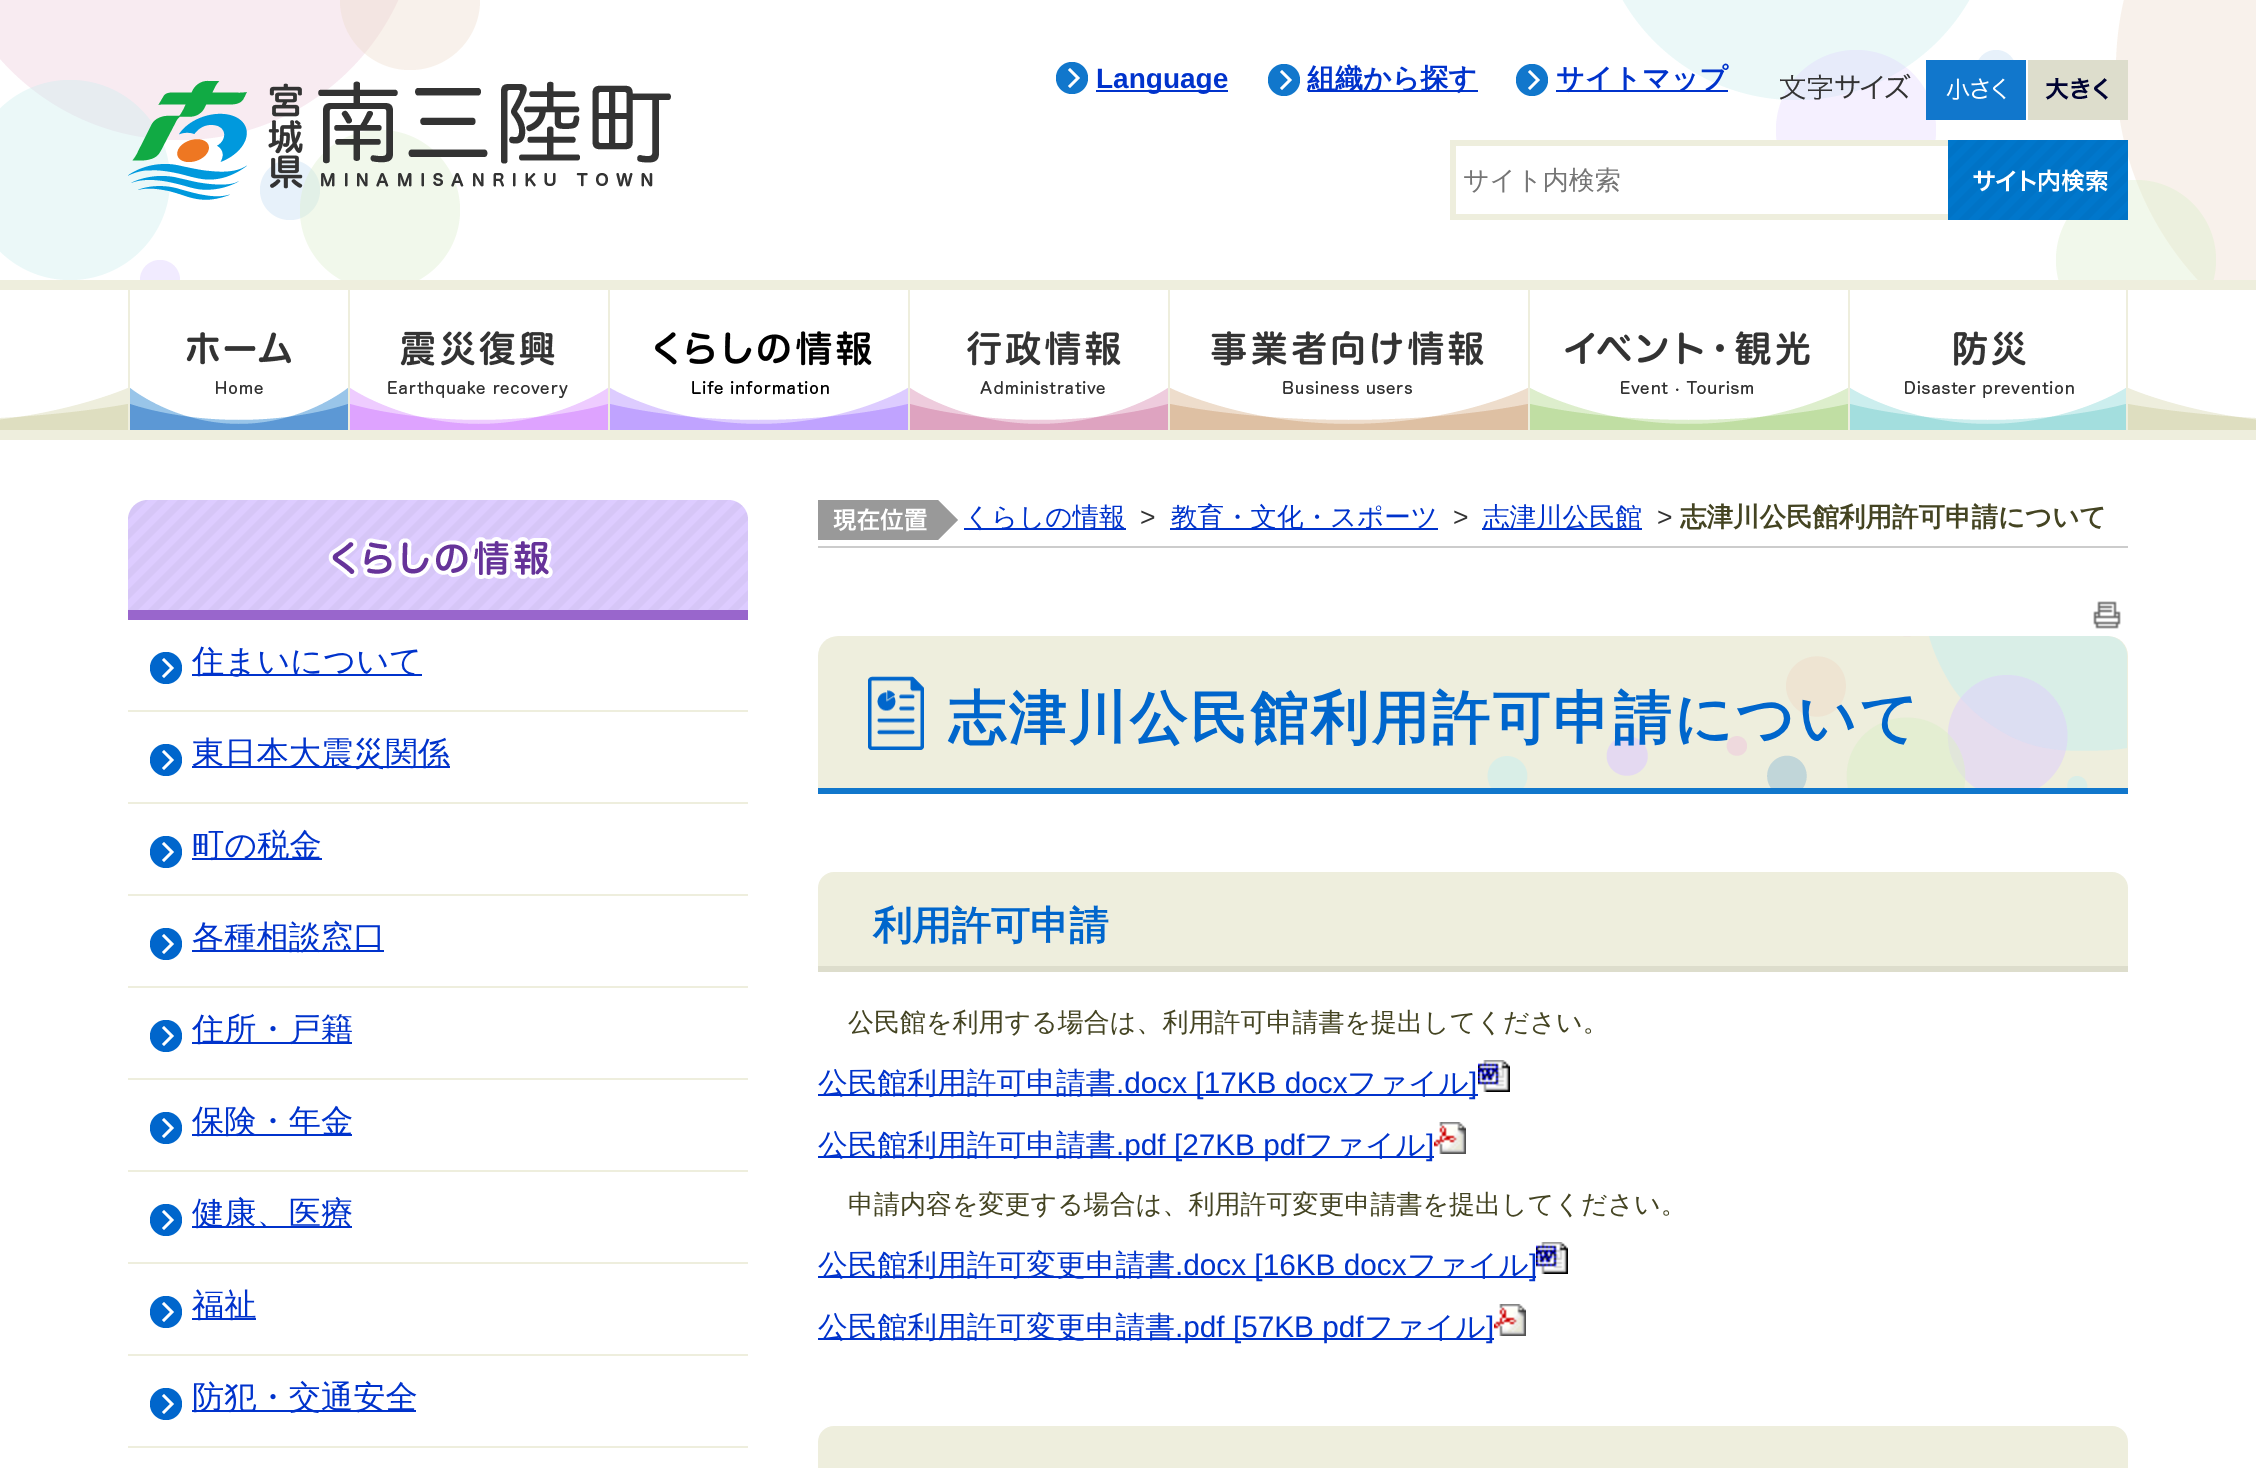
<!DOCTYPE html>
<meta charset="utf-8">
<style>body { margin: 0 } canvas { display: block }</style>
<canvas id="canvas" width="2256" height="1468"></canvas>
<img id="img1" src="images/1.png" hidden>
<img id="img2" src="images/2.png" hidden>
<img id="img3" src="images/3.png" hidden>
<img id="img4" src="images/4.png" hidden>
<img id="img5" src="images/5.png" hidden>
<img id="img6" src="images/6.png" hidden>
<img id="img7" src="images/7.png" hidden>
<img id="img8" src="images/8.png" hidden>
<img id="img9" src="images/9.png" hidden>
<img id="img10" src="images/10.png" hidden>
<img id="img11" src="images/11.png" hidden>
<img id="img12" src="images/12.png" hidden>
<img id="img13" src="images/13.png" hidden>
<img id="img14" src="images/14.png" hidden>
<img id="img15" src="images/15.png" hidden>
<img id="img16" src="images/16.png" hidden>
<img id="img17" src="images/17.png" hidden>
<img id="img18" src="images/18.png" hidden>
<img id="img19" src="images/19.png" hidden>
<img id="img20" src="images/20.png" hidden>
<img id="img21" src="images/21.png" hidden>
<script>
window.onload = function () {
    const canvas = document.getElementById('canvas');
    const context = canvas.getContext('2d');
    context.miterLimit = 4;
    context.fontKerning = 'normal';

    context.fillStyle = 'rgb(255, 255, 255)';
    context.fillRect(0, 0, 2256, 1468);
    context.drawImage(document.getElementById('img1'), 0, 0, 2256, 280);
    context.drawImage(document.getElementById('img2'), 128, 80, 543, 120);
    context.drawImage(document.getElementById('img3'), 1056, 62, 32, 32);
    context.fillStyle = 'rgb(0, 51, 204)';
    context.fillRect(1096, 90, 132, 2);
    context.drawImage(document.getElementById('img3'), 1268, 64, 32, 32);
    context.fillRect(1308, 90, 170, 2);
    context.drawImage(document.getElementById('img3'), 1516, 64, 32, 32);
    context.fillRect(1556, 90, 172, 2);
    context.drawImage(document.getElementById('img4'), 1780, 60, 348, 60);
    context.drawImage(document.getElementById('img5'), 1926, 60, 100, 60);
    context.fillStyle = 'rgb(255, 255, 255)';
    context.fillRect(1777, 146, 158, 64);
    context.fillStyle = 'rgb(238, 238, 221)';
    context.fillRect(1450, 140, 500, 6);
    context.fillRect(1450, 214, 500, 6);
    context.fillRect(1450, 140, 6, 80);
    context.drawImage(document.getElementById('img6'), 1948, 140, 180, 80);
    context.drawImage(document.getElementById('img7'), 0, 388, 2256, 42);
    context.fillRect(0, 280, 2256, 10);
    context.fillRect(0, 430, 2256, 10);
    context.drawImage(document.getElementById('img8'), 130, 332, 218, 98);
    context.fillRect(128, 290, 2, 140);
    context.drawImage(document.getElementById('img9'), 350, 331, 258, 99);
    context.fillRect(348, 290, 2, 140);
    context.drawImage(document.getElementById('img10'), 610, 331, 298, 99);
    context.fillRect(608, 290, 2, 140);
    context.drawImage(document.getElementById('img11'), 910, 331, 258, 99);
    context.fillRect(908, 290, 2, 140);
    context.drawImage(document.getElementById('img12'), 1170, 331, 358, 99);
    context.fillRect(1168, 290, 2, 140);
    context.drawImage(document.getElementById('img13'), 1530, 331, 318, 99);
    context.fillRect(1528, 290, 2, 140);
    context.drawImage(document.getElementById('img14'), 1850, 331, 276, 99);
    context.fillRect(2126, 290, 2, 140);
    context.fillRect(1848, 290, 2, 140);
    context.drawImage(document.getElementById('img15'), 128, 500, 620, 120);
    context.fillRect(128, 710, 620, 2);
    context.drawImage(document.getElementById('img16'), 150, 652, 32, 32);
    context.fillStyle = 'rgb(0, 51, 204)';
    context.fillRect(192, 674, 230, 2);
    context.fillStyle = 'rgb(238, 238, 221)';
    context.fillRect(128, 802, 620, 2);
    context.drawImage(document.getElementById('img16'), 150, 744, 32, 32);
    context.fillStyle = 'rgb(0, 51, 204)';
    context.fillRect(192, 766, 258, 2);
    context.fillStyle = 'rgb(238, 238, 221)';
    context.fillRect(128, 894, 620, 2);
    context.drawImage(document.getElementById('img16'), 150, 836, 32, 32);
    context.fillStyle = 'rgb(0, 51, 204)';
    context.fillRect(192, 858, 130, 2);
    context.fillStyle = 'rgb(238, 238, 221)';
    context.fillRect(128, 986, 620, 2);
    context.drawImage(document.getElementById('img16'), 150, 928, 32, 32);
    context.fillStyle = 'rgb(0, 51, 204)';
    context.fillRect(192, 950, 192, 2);
    context.fillStyle = 'rgb(238, 238, 221)';
    context.fillRect(128, 1078, 620, 2);
    context.drawImage(document.getElementById('img16'), 150, 1020, 32, 32);
    context.fillStyle = 'rgb(0, 51, 204)';
    context.fillRect(192, 1042, 160, 2);
    context.fillStyle = 'rgb(238, 238, 221)';
    context.fillRect(128, 1170, 620, 2);
    context.drawImage(document.getElementById('img16'), 150, 1112, 32, 32);
    context.fillStyle = 'rgb(0, 51, 204)';
    context.fillRect(192, 1134, 160, 2);
    context.fillStyle = 'rgb(238, 238, 221)';
    context.fillRect(128, 1262, 620, 2);
    context.drawImage(document.getElementById('img16'), 150, 1204, 32, 32);
    context.fillStyle = 'rgb(0, 51, 204)';
    context.fillRect(192, 1226, 160, 2);
    context.fillStyle = 'rgb(238, 238, 221)';
    context.fillRect(128, 1354, 620, 2);
    context.drawImage(document.getElementById('img16'), 150, 1296, 32, 32);
    context.fillStyle = 'rgb(0, 51, 204)';
    context.fillRect(192, 1318, 64, 2);
    context.fillStyle = 'rgb(238, 238, 221)';
    context.fillRect(128, 1446, 620, 2);
    context.drawImage(document.getElementById('img16'), 150, 1388, 32, 32);
    context.fillStyle = 'rgb(0, 51, 204)';
    context.fillRect(192, 1410, 224, 2);
    context.fillStyle = 'rgb(204, 204, 204)';
    context.fillRect(818, 546, 1310, 2);
    context.drawImage(document.getElementById('img17'), 818, 500, 140, 40);
    context.fillStyle = 'rgb(0, 51, 204)';
    context.fillRect(964, 528, 162, 2);
    context.fillRect(1170, 528, 268, 2);
    context.fillRect(1482, 528, 160, 2);
    context.drawImage(document.getElementById('img18'), 2093, 601, 28, 28);
    context.fillStyle = 'rgb(238, 238, 221)';
    context.beginPath();
    context.roundRect(818, 636, 1310, 158, [20, 20, 0, 0]);
    context.fill();
    context.drawImage(document.getElementById('img19'), 868, 636, 1259, 152);
    context.fillStyle = 'rgb(17, 119, 204)';
    context.fillRect(818, 788, 1310, 6);
    context.fillStyle = 'rgb(238, 238, 221)';
    context.beginPath();
    context.roundRect(818, 872, 1310, 100, [16, 16, 0, 0]);
    context.fill();
    context.fillStyle = 'rgb(221, 221, 204)';
    context.fillRect(818, 966, 1310, 6);
    context.fillStyle = 'rgb(0, 51, 204)';
    context.fillRect(818, 1094, 660, 2);
    context.drawImage(document.getElementById('img20'), 1478, 1060, 32, 32);
    context.fillRect(818, 1156, 616, 2);
    context.drawImage(document.getElementById('img21'), 1434, 1122, 32, 32);
    context.fillRect(818, 1276, 718, 2);
    context.drawImage(document.getElementById('img20'), 1536, 1242, 32, 32);
    context.fillRect(818, 1338, 676, 2);
    context.drawImage(document.getElementById('img21'), 1494, 1304, 32, 32);
    context.fillStyle = 'rgb(238, 238, 221)';
    context.beginPath();
    context.moveTo(834, 1426);
    context.lineTo(2112, 1426);
    context.bezierCurveTo(2121, 1426, 2128, 1433, 2128, 1442);
    context.lineTo(2128, 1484);
    context.lineTo(818, 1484);
    context.lineTo(818, 1442);
    context.bezierCurveTo(818, 1433, 825, 1426, 834, 1426);
    context.closePath();
    context.fill();
    context.font = 'bold 28px Liberation Sans';
    context.fillStyle = 'rgb(0, 51, 204)';
    context.fillText('Language', 1096, 88);
    context.font = 'bold 28px WenQuanYi Zen Hei';
    context.fillText('組織から探す', 1307, 88);
    context.fillText('サイトマップ', 1556, 88);
    context.font = '500 26px WenQuanYi Zen Hei';
    context.fillStyle = 'rgb(117, 117, 117)';
    context.fillText('サイト内検索', 1463, 189);
    context.font = '500 32.25px WenQuanYi Zen Hei';
    context.fillStyle = 'rgb(0, 51, 204)';
    context.fillText('住まいについて', 192, 672);
    context.fillText('東日本大震災関係', 192, 764);
    context.fillText('町の税金', 192, 856);
    context.fillText('各種相談窓口', 192, 948);
    context.fillText('住所・戸籍', 192, 1040);
    context.fillText('保険・年金', 192, 1132);
    context.fillText('健康、医療', 192, 1224);
    context.fillText('福祉', 192, 1316);
    context.fillText('防犯・交通安全', 192, 1408);
    context.font = '500 26.5px WenQuanYi Zen Hei';
    context.fillText('くらしの情報', 964, 526);
    context.font = '26.5px Liberation Sans';
    context.fillStyle = 'rgb(51, 51, 51)';
    context.fillText('>', 1140, 526);
    context.font = '500 26.5px WenQuanYi Zen Hei';
    context.fillStyle = 'rgb(0, 51, 204)';
    context.fillText('教育・文化・スポーツ', 1171, 526);
    context.font = '26.5px Liberation Sans';
    context.fillStyle = 'rgb(51, 51, 51)';
    context.fillText('>', 1453, 526);
    context.font = '500 26.5px WenQuanYi Zen Hei';
    context.fillStyle = 'rgb(0, 51, 204)';
    context.fillText('志津川公民館', 1483, 526);
    context.font = '26.5px Liberation Sans';
    context.fillStyle = 'rgb(51, 51, 51)';
    context.fillText('>', 1657, 526);
    context.font = 'bold 26.5px WenQuanYi Zen Hei';
    context.fillStyle = 'rgb(68, 68, 34)';
    context.fillText('志津川公民館利用許可申請について', 1680, 526);
    context.letterSpacing = '2.9px';
    context.font = 'bold 57.6px WenQuanYi Zen Hei';
    context.fillStyle = 'rgb(0, 102, 204)';
    context.fillText('志津川公民館利用許可申請について', 948, 738);
    context.letterSpacing = '0px';
    context.font = 'bold 39.25px WenQuanYi Zen Hei';
    context.fillText('利用許可申請', 873, 939);
    context.font = '500 26px WenQuanYi Zen Hei';
    context.fillStyle = 'rgb(68, 68, 34)';
    context.fillText('公民館を利用する場合は、利用許可申請書を提出してください。', 848, 1031);
    context.font = '500 29.75px WenQuanYi Zen Hei';
    context.fillStyle = 'rgb(0, 51, 204)';
    context.fillText('公民館利用許可申請書', 818, 1093);
    context.font = '29.75px Liberation Sans';
    context.fillText('.docx [17KB docx', 1116, 1093);
    context.font = '500 29.75px WenQuanYi Zen Hei';
    context.fillText('ファイル', 1347, 1093);
    context.font = '29.75px Liberation Sans';
    context.fillText(']', 1469, 1093);
    context.font = '500 29.75px WenQuanYi Zen Hei';
    context.fillText('公民館利用許可申請書', 818, 1155);
    context.font = '29.75px Liberation Sans';
    context.fillText('.pdf [27KB pdf', 1116, 1155);
    context.font = '500 29.75px WenQuanYi Zen Hei';
    context.fillText('ファイル', 1304, 1155);
    context.font = '29.75px Liberation Sans';
    context.fillText(']', 1426, 1155);
    context.font = '500 26px WenQuanYi Zen Hei';
    context.fillStyle = 'rgb(68, 68, 34)';
    context.fillText('申請内容を変更する場合は、利用許可変更申請書を提出してください。', 848, 1213);
    context.font = '500 29.75px WenQuanYi Zen Hei';
    context.fillStyle = 'rgb(0, 51, 204)';
    context.fillText('公民館利用許可変更申請書', 818, 1275);
    context.font = '29.75px Liberation Sans';
    context.fillText('.docx [16KB docx', 1175, 1275);
    context.font = '500 29.75px WenQuanYi Zen Hei';
    context.fillText('ファイル', 1407, 1275);
    context.font = '29.75px Liberation Sans';
    context.fillText(']', 1529, 1275);
    context.font = '500 29.75px WenQuanYi Zen Hei';
    context.fillText('公民館利用許可変更申請書', 818, 1337);
    context.font = '29.75px Liberation Sans';
    context.fillText('.pdf [57KB pdf', 1175, 1337);
    context.font = '500 29.75px WenQuanYi Zen Hei';
    context.fillText('ファイル', 1364, 1337);
    context.font = '29.75px Liberation Sans';
    context.fillText(']', 1486, 1337);
};
</script>
